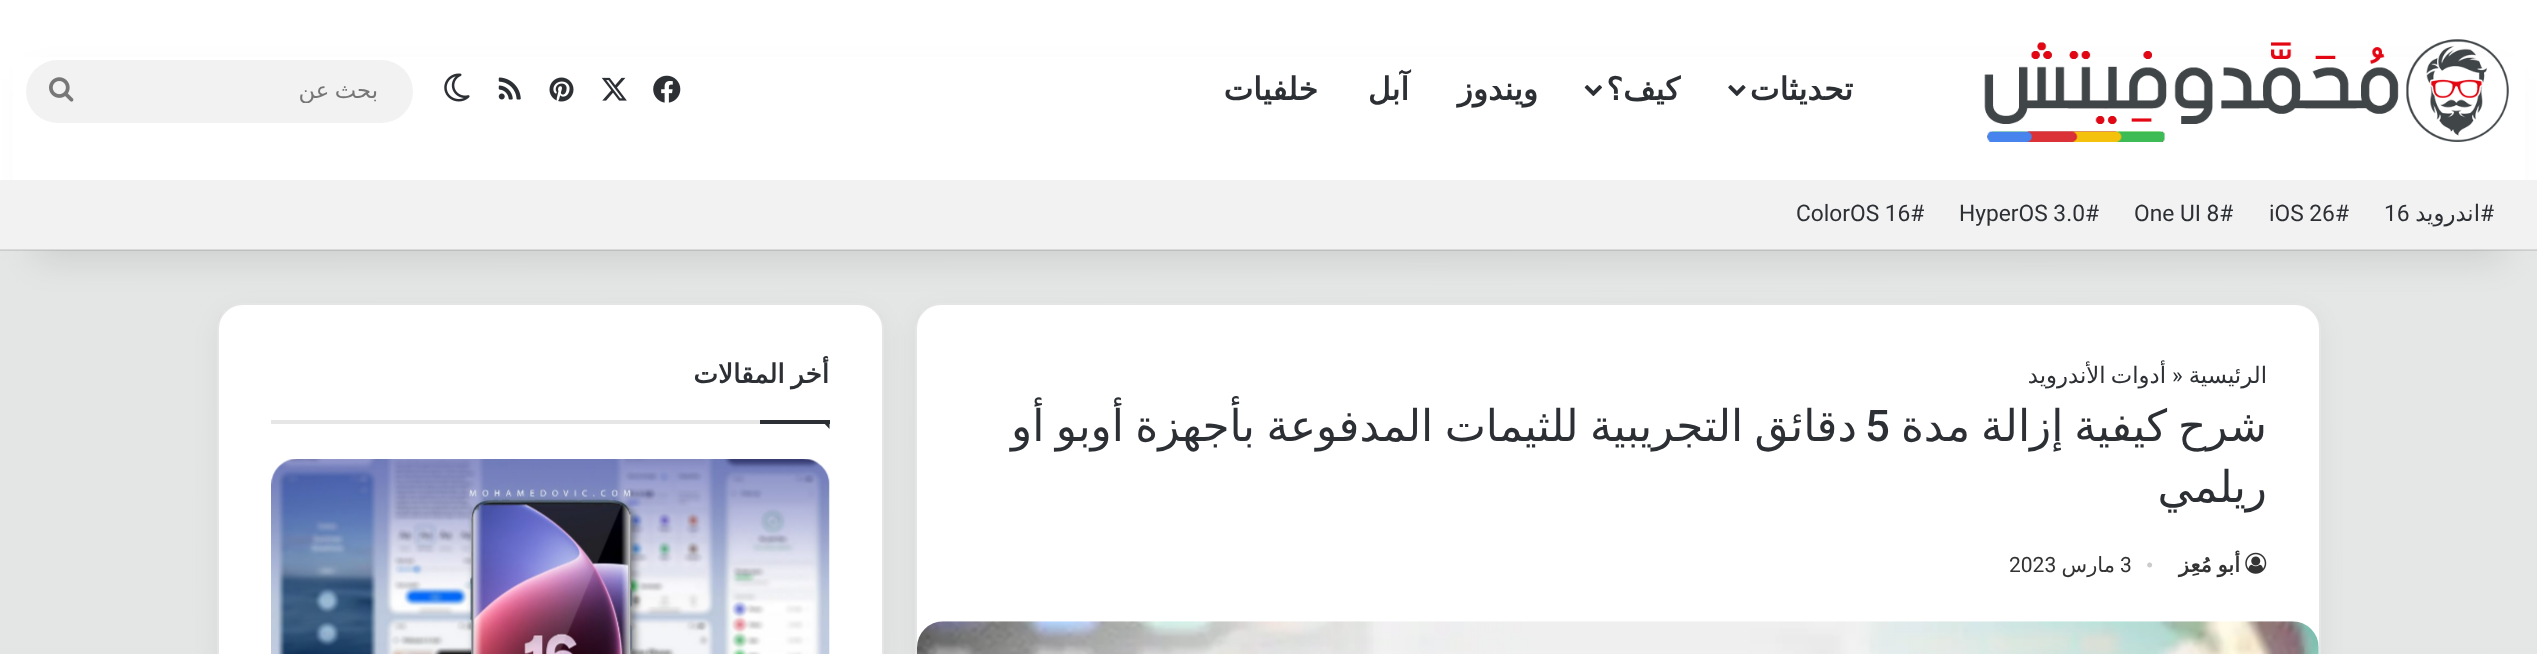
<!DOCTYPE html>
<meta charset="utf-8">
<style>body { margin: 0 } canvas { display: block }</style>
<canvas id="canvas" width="2537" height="654"></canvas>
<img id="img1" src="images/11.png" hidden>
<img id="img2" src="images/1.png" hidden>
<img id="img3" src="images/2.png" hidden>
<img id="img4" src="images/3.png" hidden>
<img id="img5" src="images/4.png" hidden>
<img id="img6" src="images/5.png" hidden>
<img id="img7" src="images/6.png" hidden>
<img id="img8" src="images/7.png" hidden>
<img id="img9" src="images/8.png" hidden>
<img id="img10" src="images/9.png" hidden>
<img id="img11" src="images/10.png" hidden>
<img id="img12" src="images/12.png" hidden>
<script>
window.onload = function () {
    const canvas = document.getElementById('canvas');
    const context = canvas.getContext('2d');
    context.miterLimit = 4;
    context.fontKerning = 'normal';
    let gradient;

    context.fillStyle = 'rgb(255, 255, 255)';
    context.fillRect(0, 0, 2537, 654);
    gradient = context.createLinearGradient(-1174, 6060, 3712, 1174);
    gradient.addColorStop(0, 'rgb(225, 226, 227)');
    gradient.addColorStop(1, 'rgb(229, 230, 230)');
    context.fillStyle = gradient;
    context.fillRect(0, 250, 2537, 404);
    context.fillStyle = 'rgba(0, 0, 0, 0.05)';
    context.filter = 'blur(13px)';
    context.beginPath();
    context.roundRect(915, 312, 1406, 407, 26);
    context.fill();
    context.filter = 'none';
    context.fillStyle = 'rgb(255, 255, 255)';
    context.beginPath();
    context.roundRect(915, 303, 1406, 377, 26);
    context.fill();
    context.beginPath();
    context.roundRect(916, 304, 1404, 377, 25);
    context.strokeStyle = 'rgba(0, 0, 0, 0.1)';
    context.lineWidth = 2;
    context.stroke();
    context.drawImage(document.getElementById('img1'), 917, 621, 1402, 33);
    context.fillStyle = 'rgba(0, 0, 0, 0.05)';
    context.filter = 'blur(13px)';
    context.beginPath();
    context.roundRect(217, 312, 667, 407, 26);
    context.fill();
    context.filter = 'none';
    context.fillStyle = 'rgb(255, 255, 255)';
    context.beginPath();
    context.roundRect(217, 303, 667, 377, 26);
    context.fill();
    context.beginPath();
    context.roundRect(218, 304, 665, 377, 25);
    context.stroke();
    context.fillStyle = 'rgba(0, 0, 0, 0.1)';
    context.filter = 'blur(17.5px)';
    context.beginPath();
    context.rect(35, 79, 2468, 180);
    context.fill();
    context.filter = 'none';
    context.fillStyle = 'rgb(255, 255, 255)';
    context.fillRect(13, 57, 2512, 123);
    context.drawImage(document.getElementById('img2'), 1984, 39, 525, 103);
    context.drawImage(document.getElementById('img3'), 1728, 85, 18, 11);
    context.drawImage(document.getElementById('img4'), 1584, 85, 18, 11);
    context.drawImage(document.getElementById('img5'), 653, 75, 28, 28);
    context.drawImage(document.getElementById('img6'), 601, 77, 26, 24);
    context.drawImage(document.getElementById('img7'), 549, 77, 25, 25);
    context.drawImage(document.getElementById('img8'), 498, 77, 23, 23);
    context.drawImage(document.getElementById('img9'), 444, 73, 26, 29);
    context.fillStyle = 'rgb(242, 242, 242)';
    context.beginPath();
    context.roundRect(26, 60, 387, 63, 31.5);
    context.fill();
    context.drawImage(document.getElementById('img10'), 49, 77, 25, 25);
    context.fillRect(0, 180, 2537, 70);
    context.fillStyle = 'rgba(0, 0, 0, 0.1)';
    context.fillRect(0, 249, 2537, 2);
    context.drawImage(document.getElementById('img11'), 2245, 552, 22, 22);
    context.fillStyle = 'rgb(230, 230, 230)';
    context.fillRect(271, 420, 489, 4);
    context.fillStyle = 'rgb(44, 47, 52)';
    context.beginPath();
    context.moveTo(821, 420);
    context.lineTo(829.5, 420);
    context.lineTo(829.5, 429);
    context.closePath();
    context.fill();
    context.fillRect(760, 420, 70, 4);
    context.drawImage(document.getElementById('img12'), 271, 459, 559, 195);
    context.direction = 'rtl';
    context.font = 'bold 31.5px DejaVu Sans';
    context.fillText('تحديثات', 1853, 100);
    context.fillText('كيف؟', 1680, 100);
    context.fillText('ويندوز', 1538, 100);
    context.fillText('آبل', 1409, 100);
    context.fillText('خلفيات', 1318, 100);
    context.save();
    context.beginPath();
    context.rect(88, 77, 290, 26);
    context.clip();
    context.wordSpacing = '-2px';
    context.font = '22.75px DejaVu Sans';
    context.fillStyle = 'rgb(117, 117, 117)';
    context.fillText('بحث عن', 378, 98);
    context.restore();
    context.font = '22.75px Roboto';
    context.fillText('#', 2494, 221);
    context.font = '22.75px DejaVu Sans';
    context.fillText('اندرويد', 2480, 221);
    context.direction = 'ltr';
    context.font = '22.75px Roboto';
    context.fillText('16', 2384, 221);
    context.fillText('iOS 26#', 2269, 221);
    context.fillText('One UI 8#', 2134, 221);
    context.fillText('HyperOS 3.0#', 1959, 221);
    context.fillText('ColorOS 16#', 1796, 221);
    context.direction = 'rtl';
    context.font = '22.75px DejaVu Sans';
    context.fillText('الرئيسية', 2267, 383);
    context.direction = 'ltr';
    context.font = '22.75px Roboto';
    context.fillText('»', 2172, 383);
    context.wordSpacing = '-2px';
    context.direction = 'rtl';
    context.font = '22.75px DejaVu Sans';
    context.fillText('أدوات الأندرويد', 2166, 383);
    context.wordSpacing = '-3px';
    context.font = '43.75px DejaVu Sans';
    context.fillText('شرح كيفية إزالة مدة', 2267, 441);
    context.wordSpacing = '-2.5px';
    context.fillText('دقائق التجريبية للثيمات المدفوعة بأجهزة أوبو أو', 1857, 441);
    context.wordSpacing = '0px';
    context.direction = 'ltr';
    context.font = '500 43.75px Roboto';
    context.fillText('5', 1865, 441);
    context.direction = 'rtl';
    context.font = '43.75px DejaVu Sans';
    context.fillText('ريلمي', 2267, 502);
    context.wordSpacing = '-1px';
    context.font = 'bold 21px DejaVu Sans';
    context.fillStyle = 'rgb(51, 51, 51)';
    context.fillText('أبو مُعِز', 2240, 572);
    context.wordSpacing = '0px';
    context.direction = 'ltr';
    context.font = '21px Liberation Serif';
    context.fillStyle = 'rgb(204, 204, 204)';
    context.fillText('•', 2146, 572);
    context.font = '21px Roboto';
    context.fillStyle = 'rgb(51, 51, 51)';
    context.fillText('3', 2120, 572);
    context.direction = 'rtl';
    context.font = '21px DejaVu Sans';
    context.fillText('مارس', 2115, 572);
    context.direction = 'ltr';
    context.font = '21px Roboto';
    context.fillText('2023', 2009, 572);
    context.wordSpacing = '-2px';
    context.direction = 'rtl';
    context.font = 'bold 26.25px DejaVu Sans';
    context.fillStyle = 'rgb(44, 47, 52)';
    context.fillText('أخر المقالات', 829, 383);
};
</script>
